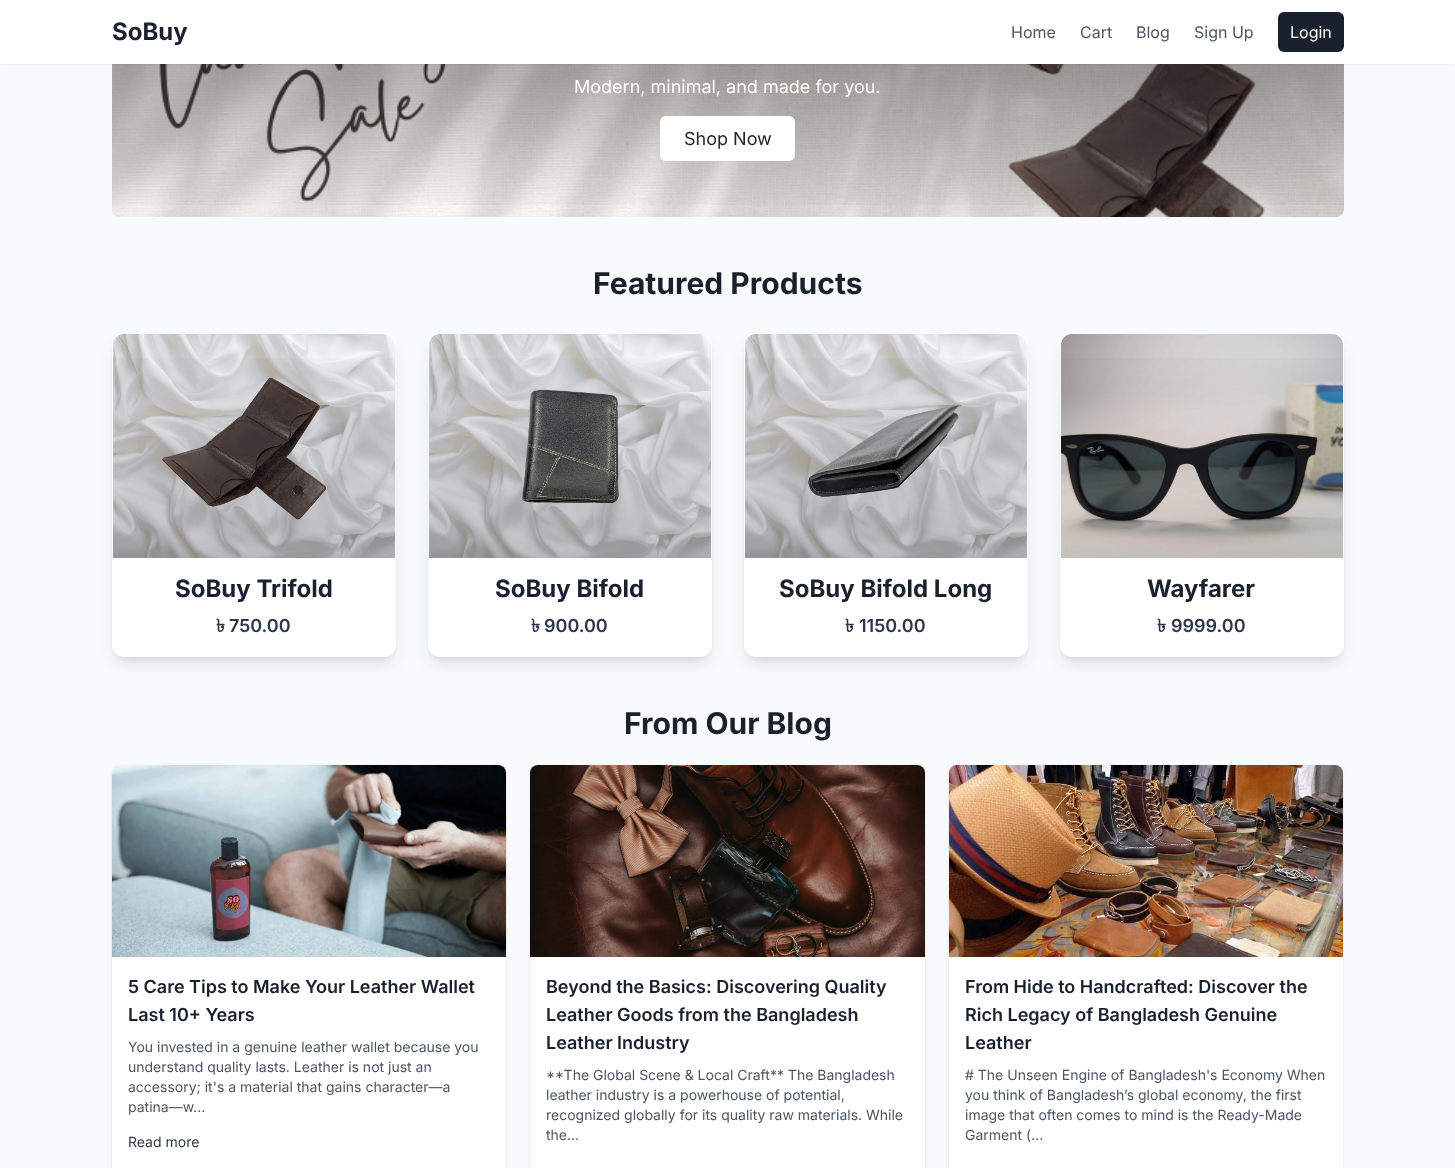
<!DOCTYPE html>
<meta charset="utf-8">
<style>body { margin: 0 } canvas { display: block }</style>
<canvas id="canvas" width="1455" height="1168"></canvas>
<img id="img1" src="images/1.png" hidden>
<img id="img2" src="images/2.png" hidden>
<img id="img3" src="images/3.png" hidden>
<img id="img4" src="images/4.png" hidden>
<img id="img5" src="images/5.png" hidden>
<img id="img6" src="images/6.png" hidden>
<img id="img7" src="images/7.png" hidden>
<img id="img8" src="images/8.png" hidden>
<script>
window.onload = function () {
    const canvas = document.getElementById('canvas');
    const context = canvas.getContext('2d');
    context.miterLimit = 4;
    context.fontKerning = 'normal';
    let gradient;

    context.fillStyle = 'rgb(249, 250, 251)';
    context.fillRect(0, 0, 1455, 1168);
    context.fillStyle = 'rgb(229, 231, 235)';
    context.beginPath();
    context.roundRect(112, -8, 1232, 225, 8);
    context.fill();
    context.drawImage(document.getElementById('img1'), 112, 64, 1232, 153);
    gradient = context.createLinearGradient(728, -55, 728, 217);
    gradient.addColorStop(0, 'rgba(0, 0, 0, 0.4)');
    gradient.addColorStop(0.5, 'rgba(0, 0, 0, 0.25)');
    gradient.addColorStop(1, 'rgba(0, 0, 0, 0)');
    context.fillStyle = gradient;
    context.fillRect(112, 64, 1232, 141);
    context.fillStyle = 'rgba(0, 0, 0, 0.05)';
    context.filter = 'blur(1px)';
    context.beginPath();
    context.rect(0, 1, 1455, 64);
    context.fill();
    context.filter = 'none';
    context.fillStyle = 'rgb(255, 255, 255)';
    context.fillRect(0, 0, 1455, 64);
    context.fillStyle = 'rgb(26, 32, 44)';
    context.beginPath();
    context.roundRect(1278, 12, 66, 40, 6);
    context.fill();
    context.fillStyle = 'rgb(255, 255, 255)';
    context.beginPath();
    context.roundRect(660, 116, 135, 45, 6);
    context.fill();
    context.fillStyle = 'rgba(0, 0, 0, 0.1)';
    context.filter = 'blur(3px)';
    context.beginPath();
    context.roundRect(116, 341, 276, 316, 8);
    context.fill();
    context.filter = 'none';
    context.filter = 'blur(7.5px)';
    context.beginPath();
    context.roundRect(115, 346, 278, 318, 9);
    context.fill();
    context.filter = 'none';
    context.fillStyle = 'rgb(255, 255, 255)';
    context.beginPath();
    context.roundRect(112, 333, 284, 324, 12);
    context.fill();
    context.drawImage(document.getElementById('img2'), 113, 334, 282, 224);
    gradient = context.createLinearGradient(254, 558, 254, 334);
    gradient.addColorStop(0, 'rgba(0, 0, 0, 0.2)');
    gradient.addColorStop(1, 'rgba(0, 0, 0, 0)');
    context.fillStyle = gradient;
    context.fillRect(113, 358, 282, 200);
    context.fillStyle = 'rgba(0, 0, 0, 0.1)';
    context.filter = 'blur(3px)';
    context.beginPath();
    context.roundRect(432, 341, 276, 316, 8);
    context.fill();
    context.filter = 'none';
    context.filter = 'blur(7.5px)';
    context.beginPath();
    context.roundRect(431, 346, 278, 318, 9);
    context.fill();
    context.filter = 'none';
    context.fillStyle = 'rgb(255, 255, 255)';
    context.beginPath();
    context.roundRect(428, 333, 284, 324, 12);
    context.fill();
    context.drawImage(document.getElementById('img3'), 429, 334, 282, 224);
    gradient = context.createLinearGradient(570, 558, 570, 334);
    gradient.addColorStop(0, 'rgba(0, 0, 0, 0.2)');
    gradient.addColorStop(1, 'rgba(0, 0, 0, 0)');
    context.fillStyle = gradient;
    context.fillRect(429, 358, 282, 200);
    context.fillStyle = 'rgba(0, 0, 0, 0.1)';
    context.filter = 'blur(3px)';
    context.beginPath();
    context.roundRect(748, 341, 276, 316, 8);
    context.fill();
    context.filter = 'none';
    context.filter = 'blur(7.5px)';
    context.beginPath();
    context.roundRect(747, 346, 278, 318, 9);
    context.fill();
    context.filter = 'none';
    context.fillStyle = 'rgb(255, 255, 255)';
    context.beginPath();
    context.roundRect(744, 333, 284, 324, 12);
    context.fill();
    context.drawImage(document.getElementById('img4'), 745, 334, 282, 224);
    gradient = context.createLinearGradient(886, 558, 886, 334);
    gradient.addColorStop(0, 'rgba(0, 0, 0, 0.2)');
    gradient.addColorStop(1, 'rgba(0, 0, 0, 0)');
    context.fillStyle = gradient;
    context.fillRect(745, 358, 282, 200);
    context.fillStyle = 'rgba(0, 0, 0, 0.1)';
    context.filter = 'blur(3px)';
    context.beginPath();
    context.roundRect(1064, 341, 276, 316, 8);
    context.fill();
    context.filter = 'none';
    context.filter = 'blur(7.5px)';
    context.beginPath();
    context.roundRect(1063, 346, 278, 318, 9);
    context.fill();
    context.filter = 'none';
    context.fillStyle = 'rgb(255, 255, 255)';
    context.beginPath();
    context.roundRect(1060, 333, 284, 324, 12);
    context.fill();
    context.drawImage(document.getElementById('img5'), 1061, 334, 282, 224);
    gradient = context.createLinearGradient(1202, 558, 1202, 334);
    gradient.addColorStop(0, 'rgba(0, 0, 0, 0.2)');
    gradient.addColorStop(1, 'rgba(0, 0, 0, 0)');
    context.fillStyle = gradient;
    context.fillRect(1061, 358, 282, 200);
    context.fillStyle = 'rgba(0, 0, 0, 0.1)';
    context.filter = 'blur(1.5px)';
    context.beginPath();
    context.roundRect(112, 766, 394, 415, 8);
    context.fill();
    context.filter = 'none';
    context.fillStyle = 'rgb(255, 255, 255)';
    context.beginPath();
    context.roundRect(112, 765, 394, 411, 8);
    context.fill();
    context.drawImage(document.getElementById('img6'), 112, 765, 394, 192);
    context.fillStyle = 'rgba(0, 0, 0, 0.1)';
    context.filter = 'blur(1.5px)';
    context.beginPath();
    context.roundRect(530, 766, 395, 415, 8);
    context.fill();
    context.filter = 'none';
    context.fillStyle = 'rgb(255, 255, 255)';
    context.beginPath();
    context.roundRect(530, 765, 395, 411, 8);
    context.fill();
    context.drawImage(document.getElementById('img7'), 530, 765, 395, 192);
    context.fillStyle = 'rgba(0, 0, 0, 0.1)';
    context.filter = 'blur(1.5px)';
    context.beginPath();
    context.roundRect(949, 766, 394, 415, 8);
    context.fill();
    context.filter = 'none';
    context.fillStyle = 'rgb(255, 255, 255)';
    context.beginPath();
    context.roundRect(949, 765, 394, 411, 8);
    context.fill();
    context.drawImage(document.getElementById('img8'), 949, 765, 394, 192);
    context.font = 'bold 24px Inter';
    context.fillStyle = 'rgb(26, 32, 44)';
    context.fillText('SoBuy', 112, 40);
    context.font = '16px Inter';
    context.fillStyle = 'rgb(75, 85, 99)';
    context.fillText('Home', 1011, 38);
    context.fillText('Cart', 1080, 38);
    context.fillText('Blog', 1136, 38);
    context.fillText('Sign Up', 1194, 38);
    context.fillStyle = 'rgb(255, 255, 255)';
    context.fillText('Login', 1290, 38);
    context.font = '18px Inter';
    context.fillText('Modern, minimal, and made for you.', 574, 93);
    context.fillStyle = 'rgb(26, 32, 44)';
    context.fillText('Shop Now', 684, 145);
    context.font = 'bold 30px Inter';
    context.fillText('Featured Products', 593, 294);
    context.font = 'bold 24px Inter';
    context.fillText('SoBuy Trifold', 175, 597);
    context.font = 'bold 18px Lohit Bengali';
    context.fillStyle = 'rgb(45, 55, 72)';
    context.fillText('৳', 216, 632);
    context.font = '600 18px Inter';
    context.fillText('750.00', 229, 632);
    context.font = 'bold 24px Inter';
    context.fillStyle = 'rgb(26, 32, 44)';
    context.fillText('SoBuy Bifold', 495, 597);
    context.font = 'bold 18px Lohit Bengali';
    context.fillStyle = 'rgb(45, 55, 72)';
    context.fillText('৳', 531, 632);
    context.font = '600 18px Inter';
    context.fillText('900.00', 544, 632);
    context.font = 'bold 24px Inter';
    context.fillStyle = 'rgb(26, 32, 44)';
    context.fillText('SoBuy Bifold Long', 779, 597);
    context.font = 'bold 18px Lohit Bengali';
    context.fillStyle = 'rgb(45, 55, 72)';
    context.fillText('৳', 845, 632);
    context.font = '600 18px Inter';
    context.fillText('1150.00', 859, 632);
    context.font = 'bold 24px Inter';
    context.fillStyle = 'rgb(26, 32, 44)';
    context.fillText('Wayfarer', 1147, 597);
    context.font = 'bold 18px Lohit Bengali';
    context.fillStyle = 'rgb(45, 55, 72)';
    context.fillText('৳', 1157, 632);
    context.font = '600 18px Inter';
    context.fillText('9999.00', 1171, 632);
    context.font = 'bold 30px Inter';
    context.fillStyle = 'rgb(26, 32, 44)';
    context.fillText('From Our Blog', 624, 734);
    context.font = '600 18px Inter';
    context.fillText('5 Care Tips to Make Your Leather Wallet', 128, 993);
    context.fillText('Last 10+ Years', 128, 1021);
    context.font = '14px Inter';
    context.fillStyle = 'rgb(75, 85, 99)';
    context.fillText('You invested in a genuine leather wallet because you', 128, 1052);
    context.fillText('understand quality lasts. Leather is not just an', 128, 1072);
    context.fillText('accessory; it\'s a material that gains character—a', 128, 1092);
    context.fillText('patina—w...', 128, 1112);
    context.fillStyle = 'rgb(45, 55, 72)';
    context.fillText('Read more', 128, 1147);
    context.font = '600 18px Inter';
    context.fillStyle = 'rgb(26, 32, 44)';
    context.fillText('Beyond the Basics: Discovering Quality', 546, 993);
    context.fillText('Leather Goods from the Bangladesh', 546, 1021);
    context.fillText('Leather Industry', 546, 1049);
    context.font = '14px Inter';
    context.fillStyle = 'rgb(75, 85, 99)';
    context.fillText('**The Global Scene & Local Craft** The Bangladesh', 546, 1080);
    context.fillText('leather industry is a powerhouse of potential,', 546, 1100);
    context.fillText('recognized globally for its quality raw materials. While', 546, 1120);
    context.fillText('the...', 546, 1140);
    context.font = '600 18px Inter';
    context.fillStyle = 'rgb(26, 32, 44)';
    context.fillText('From Hide to Handcrafted: Discover the', 965, 993);
    context.fillText('Rich Legacy of Bangladesh Genuine', 965, 1021);
    context.fillText('Leather', 965, 1049);
    context.font = '14px Inter';
    context.fillStyle = 'rgb(75, 85, 99)';
    context.fillText('# The Unseen Engine of Bangladesh\'s Economy When', 965, 1080);
    context.fillText('you think of Bangladesh’s global economy, the first', 965, 1100);
    context.fillText('image that often comes to mind is the Ready-Made', 965, 1120);
    context.fillText('Garment (...', 965, 1140);
};
</script>
